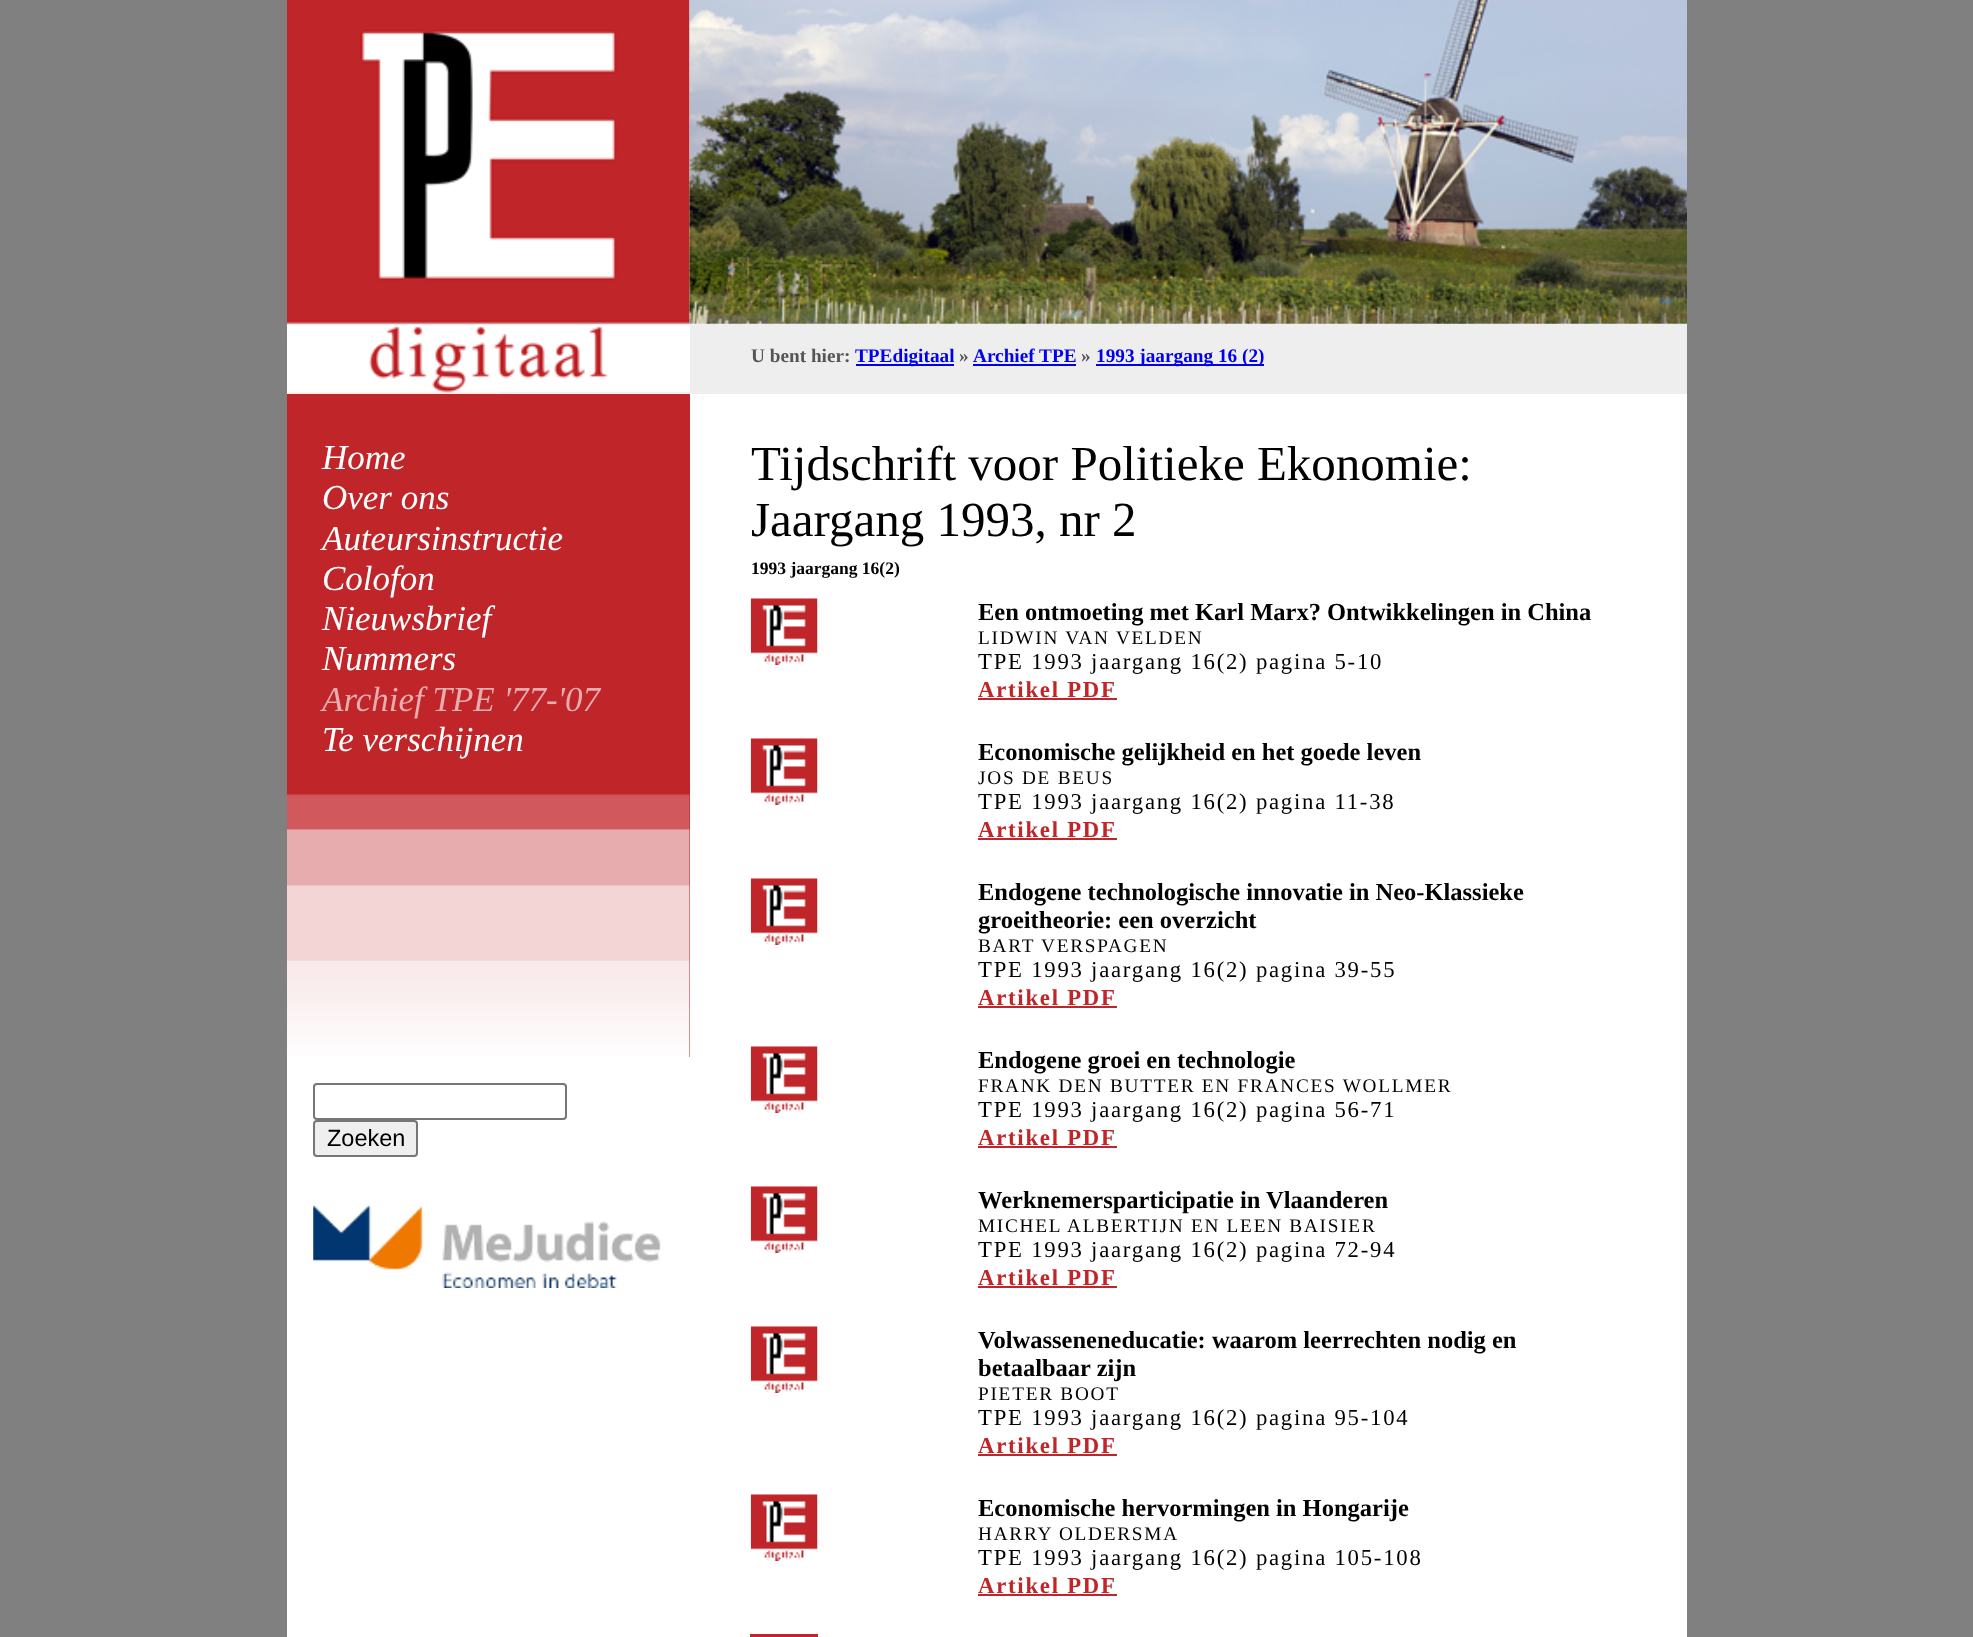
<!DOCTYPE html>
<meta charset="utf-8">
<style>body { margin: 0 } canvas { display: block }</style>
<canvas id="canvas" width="1973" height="1637"></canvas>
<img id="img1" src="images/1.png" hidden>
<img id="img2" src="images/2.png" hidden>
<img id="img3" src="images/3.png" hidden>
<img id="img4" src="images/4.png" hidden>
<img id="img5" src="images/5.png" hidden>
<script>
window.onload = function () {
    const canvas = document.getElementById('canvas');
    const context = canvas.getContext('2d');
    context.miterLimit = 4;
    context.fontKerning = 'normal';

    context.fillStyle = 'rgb(128, 128, 128)';
    context.fillRect(0, 0, 1973, 1637);
    context.fillStyle = 'rgb(255, 255, 255)';
    context.fillRect(287, 0, 1400, 1637);
    context.drawImage(document.getElementById('img1'), 287, 0, 403, 394);
    context.fillStyle = 'rgb(192, 37, 41)';
    context.fillRect(287, 394, 403, 663);
    context.drawImage(document.getElementById('img2'), 287, 794, 403, 263);
    context.beginPath();
    context.roundRect(314, 1084, 252, 35, 3);
    context.strokeStyle = 'rgb(118, 118, 118)';
    context.lineWidth = 2;
    context.stroke();
    context.fillStyle = 'rgb(239, 239, 239)';
    context.beginPath();
    context.roundRect(314, 1121, 103, 35, 3);
    context.fill();
    context.stroke();
    context.drawImage(document.getElementById('img3'), 313, 1205, 348, 83);
    context.drawImage(document.getElementById('img4'), 689, 0, 998, 324);
    context.fillStyle = 'rgb(238, 238, 238)';
    context.fillRect(690, 324, 997, 70);
    context.fillStyle = 'rgb(0, 0, 238)';
    context.fillRect(856, 364, 98, 2);
    context.fillRect(973, 364, 103, 2);
    context.fillRect(1096, 364, 168, 2);
    context.drawImage(document.getElementById('img5'), 750, 598, 68, 67);
    context.fillStyle = 'rgb(192, 37, 41)';
    context.fillRect(978, 698, 139, 2);
    context.drawImage(document.getElementById('img5'), 750, 738, 68, 67);
    context.fillRect(978, 838, 139, 2);
    context.drawImage(document.getElementById('img5'), 750, 878, 68, 67);
    context.fillRect(978, 1006, 139, 2);
    context.drawImage(document.getElementById('img5'), 750, 1046, 68, 67);
    context.fillRect(978, 1146, 139, 2);
    context.drawImage(document.getElementById('img5'), 750, 1186, 68, 67);
    context.fillRect(978, 1286, 139, 2);
    context.drawImage(document.getElementById('img5'), 750, 1326, 68, 67);
    context.fillRect(978, 1454, 139, 2);
    context.drawImage(document.getElementById('img5'), 750, 1494, 68, 67);
    context.fillRect(978, 1594, 139, 2);
    context.fillRect(750, 1634, 68, 3);
    context.font = 'italic 35px Liberation Serif';
    context.fillStyle = 'rgb(255, 255, 255)';
    context.fillText('Home', 322, 469);
    context.fillText('Over ons', 322, 509);
    context.fillText('Auteursinstructie', 322, 550);
    context.fillText('Colofon', 322, 590);
    context.fillText('Nieuwsbrief', 322, 630);
    context.fillText('Nummers', 322, 670);
    context.fillStyle = 'rgb(231, 172, 174)';
    context.fillText('Archief TPE \'77-\'07', 322, 711);
    context.fillStyle = 'rgb(255, 255, 255)';
    context.fillText('Te verschijnen', 322, 751);
    context.font = '23.5px Liberation Sans';
    context.fillStyle = 'rgb(0, 0, 0)';
    context.fillText('Zoeken', 327, 1146);
    context.font = 'bold 19.25px Liberation Serif';
    context.fillStyle = 'rgb(85, 85, 85)';
    context.fillText('U bent hier:', 751, 362);
    context.fillStyle = 'rgb(0, 0, 238)';
    context.fillText('TPEdigitaal', 855, 362);
    context.fillStyle = 'rgb(85, 85, 85)';
    context.fillText('»', 959, 362);
    context.fillStyle = 'rgb(0, 0, 238)';
    context.fillText('Archief TPE', 973, 362);
    context.fillStyle = 'rgb(85, 85, 85)';
    context.fillText('»', 1081, 362);
    context.fillStyle = 'rgb(0, 0, 238)';
    context.fillText('1993 jaargang 16 (2)', 1096, 362);
    context.font = '49px Liberation Serif';
    context.fillStyle = 'rgb(0, 0, 0)';
    context.fillText('Tijdschrift voor Politieke Ekonomie:', 751, 480);
    context.fillText('Jaargang 1993, nr 2', 751, 536);
    context.font = 'bold 17.5px Liberation Serif';
    context.fillText('1993 jaargang 16(2)', 751, 574);
    context.font = 'bold 24.5px Liberation Serif';
    context.fillText('Een ontmoeting met Karl Marx? Ontwikkelingen in China', 978, 620);
    context.letterSpacing = '1.75px';
    context.font = '19.25px Liberation Serif';
    context.fillText('LIDWIN VAN VELDEN', 978, 644);
    context.font = '22.75px Liberation Serif';
    context.fillText('TPE 1993 jaargang 16(2) pagina 5-10', 978, 669);
    context.font = 'bold 22.75px Liberation Serif';
    context.fillStyle = 'rgb(192, 37, 41)';
    context.fillText('Artikel PDF', 978, 697);
    context.letterSpacing = '0px';
    context.font = 'bold 24.5px Liberation Serif';
    context.fillStyle = 'rgb(0, 0, 0)';
    context.fillText('Economische gelijkheid en het goede leven', 978, 760);
    context.letterSpacing = '1.75px';
    context.font = '19.25px Liberation Serif';
    context.fillText('JOS DE BEUS', 978, 784);
    context.font = '22.75px Liberation Serif';
    context.fillText('TPE 1993 jaargang 16(2) pagina 11-38', 978, 809);
    context.font = 'bold 22.75px Liberation Serif';
    context.fillStyle = 'rgb(192, 37, 41)';
    context.fillText('Artikel PDF', 978, 837);
    context.letterSpacing = '0px';
    context.font = 'bold 24.5px Liberation Serif';
    context.fillStyle = 'rgb(0, 0, 0)';
    context.fillText('Endogene technologische innovatie in Neo-Klassieke', 978, 900);
    context.fillText('groeitheorie: een overzicht', 978, 928);
    context.letterSpacing = '1.75px';
    context.font = '19.25px Liberation Serif';
    context.fillText('BART VERSPAGEN', 978, 952);
    context.font = '22.75px Liberation Serif';
    context.fillText('TPE 1993 jaargang 16(2) pagina 39-55', 978, 977);
    context.font = 'bold 22.75px Liberation Serif';
    context.fillStyle = 'rgb(192, 37, 41)';
    context.fillText('Artikel PDF', 978, 1005);
    context.letterSpacing = '0px';
    context.font = 'bold 24.5px Liberation Serif';
    context.fillStyle = 'rgb(0, 0, 0)';
    context.fillText('Endogene groei en technologie', 978, 1068);
    context.letterSpacing = '1.75px';
    context.font = '19.25px Liberation Serif';
    context.fillText('FRANK DEN BUTTER EN FRANCES WOLLMER', 978, 1092);
    context.font = '22.75px Liberation Serif';
    context.fillText('TPE 1993 jaargang 16(2) pagina 56-71', 978, 1117);
    context.font = 'bold 22.75px Liberation Serif';
    context.fillStyle = 'rgb(192, 37, 41)';
    context.fillText('Artikel PDF', 978, 1145);
    context.letterSpacing = '0px';
    context.font = 'bold 24.5px Liberation Serif';
    context.fillStyle = 'rgb(0, 0, 0)';
    context.fillText('Werknemersparticipatie in Vlaanderen', 978, 1208);
    context.letterSpacing = '1.75px';
    context.font = '19.25px Liberation Serif';
    context.fillText('MICHEL ALBERTIJN EN LEEN BAISIER', 978, 1232);
    context.font = '22.75px Liberation Serif';
    context.fillText('TPE 1993 jaargang 16(2) pagina 72-94', 978, 1257);
    context.font = 'bold 22.75px Liberation Serif';
    context.fillStyle = 'rgb(192, 37, 41)';
    context.fillText('Artikel PDF', 978, 1285);
    context.letterSpacing = '0px';
    context.font = 'bold 24.5px Liberation Serif';
    context.fillStyle = 'rgb(0, 0, 0)';
    context.fillText('Volwasseneneducatie: waarom leerrechten nodig en', 978, 1348);
    context.fillText('betaalbaar zijn', 978, 1376);
    context.letterSpacing = '1.75px';
    context.font = '19.25px Liberation Serif';
    context.fillText('PIETER BOOT', 978, 1400);
    context.font = '22.75px Liberation Serif';
    context.fillText('TPE 1993 jaargang 16(2) pagina 95-104', 978, 1425);
    context.font = 'bold 22.75px Liberation Serif';
    context.fillStyle = 'rgb(192, 37, 41)';
    context.fillText('Artikel PDF', 978, 1453);
    context.letterSpacing = '0px';
    context.font = 'bold 24.5px Liberation Serif';
    context.fillStyle = 'rgb(0, 0, 0)';
    context.fillText('Economische hervormingen in Hongarije', 978, 1516);
    context.letterSpacing = '1.75px';
    context.font = '19.25px Liberation Serif';
    context.fillText('HARRY OLDERSMA', 978, 1540);
    context.font = '22.75px Liberation Serif';
    context.fillText('TPE 1993 jaargang 16(2) pagina 105-108', 978, 1565);
    context.font = 'bold 22.75px Liberation Serif';
    context.fillStyle = 'rgb(192, 37, 41)';
    context.fillText('Artikel PDF', 978, 1593);
};
</script>
